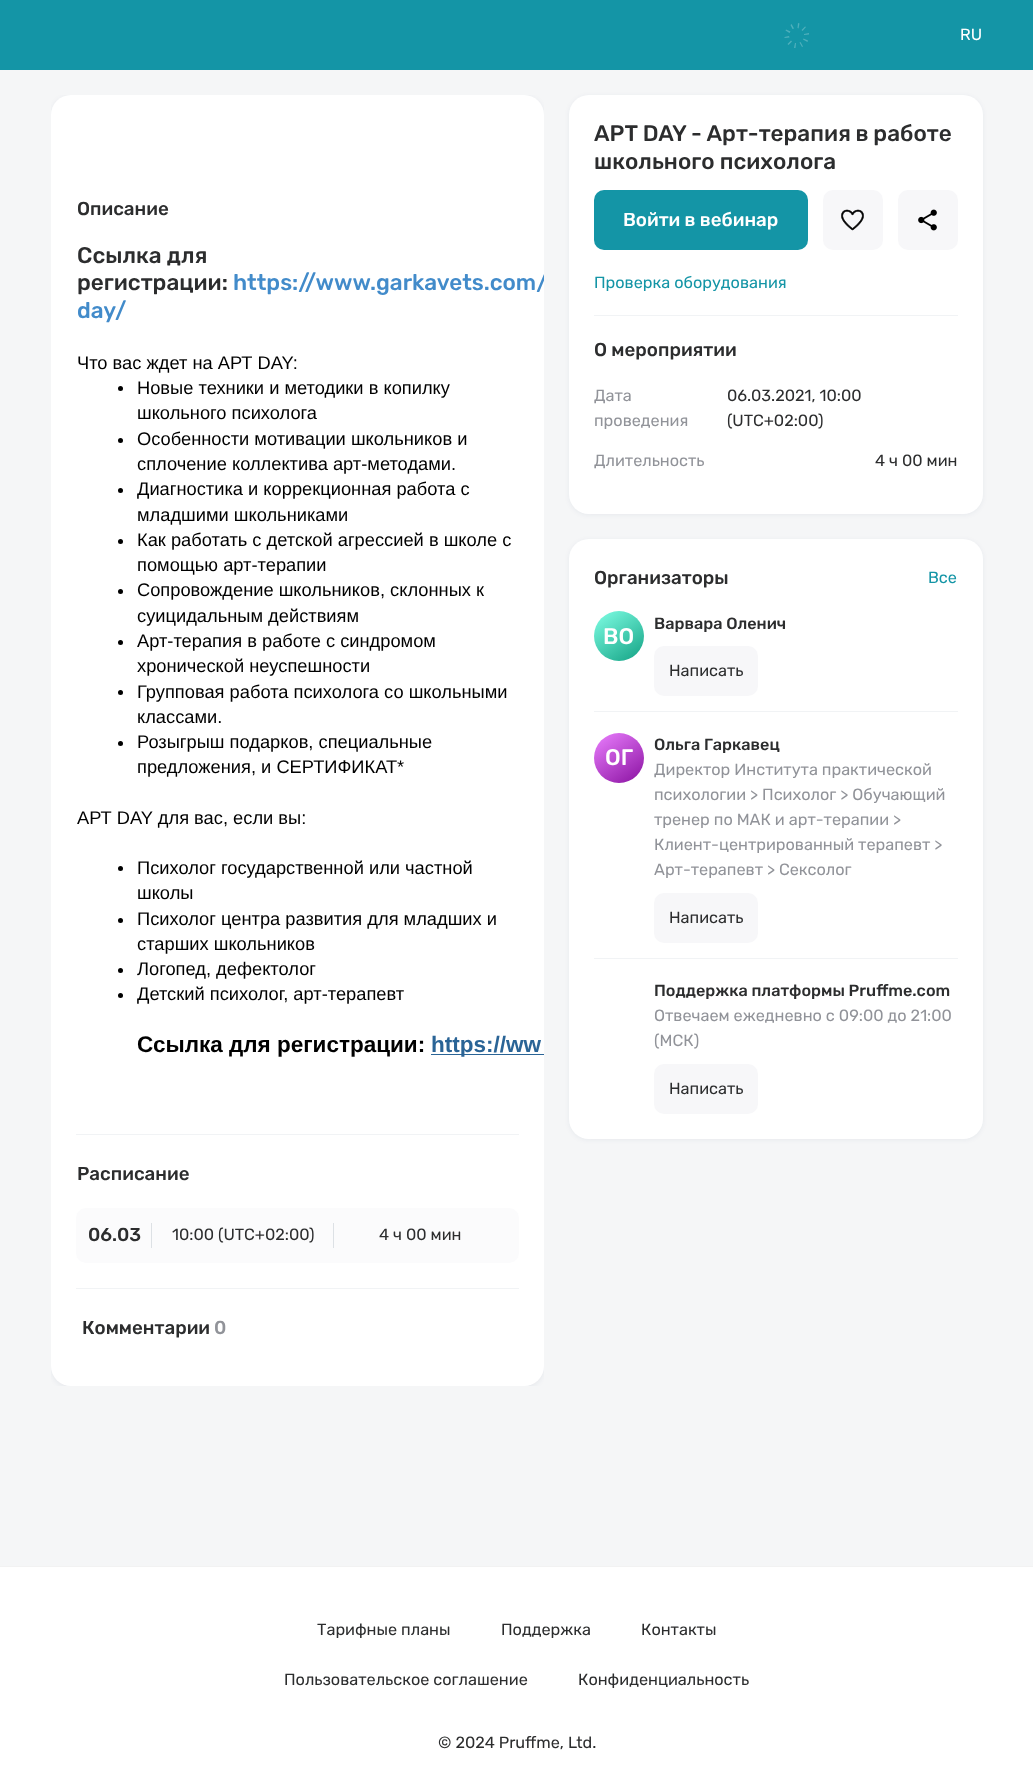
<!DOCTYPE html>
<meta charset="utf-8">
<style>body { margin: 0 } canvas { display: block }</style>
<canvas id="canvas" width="1033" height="1779"></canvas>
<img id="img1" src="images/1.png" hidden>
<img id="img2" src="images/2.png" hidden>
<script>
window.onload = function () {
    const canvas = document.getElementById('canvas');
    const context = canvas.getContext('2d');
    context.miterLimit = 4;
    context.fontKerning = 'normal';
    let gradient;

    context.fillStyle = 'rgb(255, 255, 255)';
    context.fillRect(0, 0, 1033, 1779);
    context.fillStyle = 'rgb(20, 149, 166)';
    context.fillRect(0, 0, 1033, 70);
    context.fillStyle = 'rgb(79, 176, 188)';
    context.beginPath();
    context.moveTo(803.5, 38.5);
    context.lineTo(808, 40.5);
    context.lineTo(807.5, 42);
    context.lineTo(803, 39.5);
    context.closePath();
    context.moveTo(800.5, 42);
    context.lineTo(803, 46.5);
    context.lineTo(802, 47);
    context.lineTo(799.5, 42.5);
    context.closePath();
    context.moveTo(796, 43);
    context.lineTo(795.5, 48);
    context.lineTo(794, 48);
    context.lineTo(795, 43);
    context.closePath();
    context.moveTo(792, 41.5);
    context.lineTo(788.5, 45);
    context.lineTo(787.5, 44);
    context.lineTo(791, 40.5);
    context.closePath();
    context.moveTo(789.5, 37.5);
    context.lineTo(784.5, 38);
    context.lineTo(784.5, 37);
    context.lineTo(789, 36);
    context.closePath();
    context.moveTo(789.5, 33);
    context.lineTo(785.5, 30.5);
    context.lineTo(786, 29.5);
    context.lineTo(790.5, 31.5);
    context.closePath();
    context.moveTo(792.5, 29);
    context.lineTo(790.5, 25);
    context.lineTo(791.5, 24);
    context.lineTo(794, 28.5);
    context.closePath();
    context.fill();
    context.beginPath();
    context.moveTo(797.5, 28);
    context.lineTo(798, 23);
    context.lineTo(799.5, 23.5);
    context.lineTo(798.5, 28.5);
    context.closePath();
    context.moveTo(801.5, 30);
    context.lineTo(805, 26.5);
    context.lineTo(806, 27);
    context.lineTo(802.5, 31);
    context.closePath();
    context.moveTo(804, 34);
    context.lineTo(809, 33);
    context.lineTo(809, 34.5);
    context.lineTo(804, 35);
    context.closePath();
    context.fill();
    context.fillStyle = 'rgb(245, 246, 247)';
    context.fillRect(0, 70, 1033, 1496);
    context.save();
    context.beginPath();
    context.rect(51, 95, 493, 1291);
    context.clip();
    context.fillStyle = 'rgba(12, 42, 86, 0.06)';
    context.filter = 'blur(2.5px)';
    context.beginPath();
    context.roundRect(51, 96, 493, 1292, 20);
    context.fill();
    context.filter = 'none';
    context.restore();
    context.fillStyle = 'rgb(255, 255, 255)';
    context.beginPath();
    context.roundRect(51, 95, 493, 1291, 20);
    context.fill();
    context.fillStyle = 'rgb(241, 243, 245)';
    context.fillRect(76, 1134, 443, 1);
    context.fillStyle = 'rgb(0, 0, 0)';
    context.beginPath();
    context.arc(120.5, 388.5, 2.5, 0, 2 * Math.PI);
    context.fill();
    context.beginPath();
    context.arc(120.5, 440.5, 2.5, 0, 2 * Math.PI);
    context.fill();
    context.beginPath();
    context.arc(120.5, 490.5, 2.5, 0, 2 * Math.PI);
    context.fill();
    context.beginPath();
    context.arc(120.5, 541.5, 2.5, 0, 2 * Math.PI);
    context.fill();
    context.beginPath();
    context.arc(120.5, 591.5, 2.5, 0, 2 * Math.PI);
    context.fill();
    context.beginPath();
    context.arc(120.5, 642.5, 2.5, 0, 2 * Math.PI);
    context.fill();
    context.beginPath();
    context.arc(120.5, 692.5, 2.5, 0, 2 * Math.PI);
    context.fill();
    context.beginPath();
    context.arc(120.5, 743.5, 2.5, 0, 2 * Math.PI);
    context.fill();
    context.beginPath();
    context.arc(120.5, 868.5, 2.5, 0, 2 * Math.PI);
    context.fill();
    context.beginPath();
    context.arc(120.5, 920.5, 2.5, 0, 2 * Math.PI);
    context.fill();
    context.beginPath();
    context.arc(120.5, 970.5, 2.5, 0, 2 * Math.PI);
    context.fill();
    context.beginPath();
    context.arc(120.5, 995.5, 2.5, 0, 2 * Math.PI);
    context.fill();
    context.fillStyle = 'rgb(42, 100, 150)';
    context.fillRect(431, 1054, 113, 1);
    context.fillStyle = 'rgb(241, 243, 245)';
    context.fillRect(76, 1288, 443, 1);
    context.fillStyle = 'rgb(251, 251, 252)';
    context.beginPath();
    context.roundRect(76, 1208, 443, 55, 10);
    context.fill();
    context.fillStyle = 'rgb(221, 225, 229)';
    context.fillRect(151, 1223, 1, 25);
    context.fillRect(333, 1223, 1, 25);
    context.fillStyle = 'rgba(12, 42, 86, 0.06)';
    context.filter = 'blur(2.5px)';
    context.beginPath();
    context.roundRect(569, 96, 414, 419, 20);
    context.fill();
    context.filter = 'none';
    context.fillStyle = 'rgb(255, 255, 255)';
    context.beginPath();
    context.roundRect(569, 95, 414, 419, 20);
    context.fill();
    context.fillStyle = 'rgb(20, 149, 166)';
    context.beginPath();
    context.roundRect(594, 190, 214, 60, 10);
    context.fill();
    context.fillStyle = 'rgb(247, 247, 249)';
    context.beginPath();
    context.roundRect(823, 190, 60, 60, 10);
    context.fill();
    context.drawImage(document.getElementById('img1'), 841, 209, 23, 22);
    context.beginPath();
    context.roundRect(898, 190, 60, 60, 10);
    context.fill();
    context.drawImage(document.getElementById('img2'), 918, 209, 19, 22);
    context.fillStyle = 'rgb(241, 243, 245)';
    context.fillRect(594, 315, 364, 1);
    context.fillStyle = 'rgba(12, 42, 86, 0.06)';
    context.filter = 'blur(2.5px)';
    context.beginPath();
    context.roundRect(569, 540, 414, 600, 20);
    context.fill();
    context.filter = 'none';
    context.fillStyle = 'rgb(255, 255, 255)';
    context.beginPath();
    context.roundRect(569, 539, 414, 600, 20);
    context.fill();
    context.fillStyle = 'rgb(241, 243, 245)';
    context.fillRect(594, 711, 364, 1);
    gradient = context.createLinearGradient(599, 608, 639, 665);
    gradient.addColorStop(0, 'rgb(128, 255, 229)');
    gradient.addColorStop(1, 'rgb(18, 161, 131)');
    context.fillStyle = gradient;
    context.beginPath();
    context.arc(619, 636, 25, 0, 2 * Math.PI);
    context.fill();
    context.fillStyle = 'rgb(247, 247, 249)';
    context.beginPath();
    context.roundRect(654, 646, 104, 50, 10);
    context.fill();
    context.fillStyle = 'rgb(241, 243, 245)';
    context.fillRect(594, 958, 364, 1);
    gradient = context.createLinearGradient(599, 729, 639, 786);
    gradient.addColorStop(0, 'rgb(235, 128, 255)');
    gradient.addColorStop(1, 'rgb(138, 18, 161)');
    context.fillStyle = gradient;
    context.beginPath();
    context.arc(619, 758, 25, 0, 2 * Math.PI);
    context.fill();
    context.fillStyle = 'rgb(247, 247, 249)';
    context.beginPath();
    context.roundRect(654, 893, 104, 50, 10);
    context.fill();
    context.beginPath();
    context.roundRect(654, 1064, 104, 50, 10);
    context.fill();
    context.fillStyle = 'rgb(242, 242, 242)';
    context.fillRect(0, 1566, 1033, 1);
    context.font = '16.25px Rubik';
    context.fillStyle = 'rgb(255, 255, 255)';
    context.fillText('RU', 960, 40);
    context.font = '500 18.75px Rubik';
    context.fillStyle = 'rgb(44, 45, 46)';
    context.fillText('Описание', 77, 215);
    context.font = '500 22.5px Rubik';
    context.fillText('Ссылка для', 77, 263);
    context.fillText('регистрации:', 77, 290);
    context.save();
    context.beginPath();
    context.rect(51, 95, 493, 1291);
    context.clip();
    context.fillStyle = 'rgb(66, 139, 202)';
    context.fillText('https://www.garkavets.com/', 233, 290);
    context.restore();
    context.fillStyle = 'rgb(66, 139, 202)';
    context.fillText('day/', 77, 318);
    context.font = '18.3px Liberation Sans';
    context.fillStyle = 'rgb(0, 0, 0)';
    context.fillText('Что вас ждет на АРТ DAY:', 77, 369);
    context.fillText('Новые техники и методики в копилку', 137, 394);
    context.fillText('школьного психолога', 137, 419);
    context.fillText('Особенности мотивации школьников и', 137, 445);
    context.fillText('сплочение коллектива арт-методами.', 137, 470);
    context.fillText('Диагностика и коррекционная работа с', 137, 495);
    context.fillText('младшими школьниками', 137, 521);
    context.fillText('Как работать с детской агрессией в школе с', 137, 546);
    context.fillText('помощью арт-терапии', 137, 571);
    context.fillText('Сопровождение школьников, склонных к', 137, 596);
    context.fillText('суицидальным действиям', 137, 622);
    context.fillText('Арт-терапия в работе с синдромом', 137, 647);
    context.fillText('хронической неуспешности', 137, 672);
    context.fillText('Групповая работа психолога со школьными', 137, 698);
    context.fillText('классами.', 137, 723);
    context.fillText('Розыгрыш подарков, специальные', 137, 748);
    context.fillText('предложения, и СЕРТИФИКАТ*', 137, 773);
    context.fillText('АРТ DAY для вас, если вы:', 77, 824);
    context.fillText('Психолог государственной или частной', 137, 874);
    context.fillText('школы', 137, 899);
    context.fillText('Психолог центра развития для младших и', 137, 925);
    context.fillText('старших школьников', 137, 950);
    context.fillText('Логопед, дефектолог', 137, 975);
    context.fillText('Детский психолог, арт-терапевт', 137, 1000);
    context.font = 'bold 22.5px Liberation Sans';
    context.fillText('Ссылка для регистрации:', 137, 1052);
    context.fillStyle = 'rgb(42, 100, 150)';
    context.fillText('https://ww', 431, 1052);
    context.font = '500 18.75px Rubik';
    context.fillStyle = 'rgb(44, 45, 46)';
    context.fillText('Расписание', 77, 1180);
    context.fillText('06.03', 88, 1241);
    context.font = '16.25px Rubik';
    context.fillText('10:00 (UTC+02:00)', 172, 1240);
    context.fillText('4 ч 00 мин', 379, 1240);
    context.font = '500 18.75px Rubik';
    context.fillText('Комментарии', 82, 1334);
    context.fillStyle = 'rgb(145, 147, 153)';
    context.fillText('0', 214, 1334);
    context.wordSpacing = '-0.5px';
    context.font = '500 22.5px Rubik';
    context.fillStyle = 'rgb(44, 45, 46)';
    context.fillText('АРТ DAY - Арт-терапия в работе', 594, 141);
    context.wordSpacing = '0px';
    context.fillText('школьного психолога', 594, 169);
    context.font = '500 18.75px Rubik';
    context.fillStyle = 'rgb(255, 255, 255)';
    context.fillText('Войти в вебинар', 623, 226);
    context.font = '16.25px Rubik';
    context.fillStyle = 'rgb(20, 149, 166)';
    context.fillText('Проверка оборудования', 594, 288);
    context.font = '500 18.75px Rubik';
    context.fillStyle = 'rgb(44, 45, 46)';
    context.fillText('О мероприятии', 594, 356);
    context.font = '16.25px Rubik';
    context.fillStyle = 'rgb(145, 147, 153)';
    context.fillText('Дата', 594, 401);
    context.fillText('проведения', 594, 426);
    context.fillStyle = 'rgb(44, 45, 46)';
    context.fillText('06.03.2021, 10:00', 727, 401);
    context.fillText('(UTC+02:00)', 727, 426);
    context.fillStyle = 'rgb(145, 147, 153)';
    context.fillText('Длительность', 594, 466);
    context.fillStyle = 'rgb(44, 45, 46)';
    context.fillText('4 ч 00 мин', 875, 466);
    context.font = '500 18.75px Rubik';
    context.fillText('Организаторы', 594, 584);
    context.font = '16.25px Rubik';
    context.fillStyle = 'rgb(20, 149, 166)';
    context.fillText('Все', 928, 583);
    context.font = '500 22.5px Rubik';
    context.fillStyle = 'rgb(255, 255, 255)';
    context.fillText('ВО', 603, 644);
    context.font = '500 16.25px Rubik';
    context.fillStyle = 'rgb(44, 45, 46)';
    context.fillText('Варвара Оленич', 654, 629);
    context.font = '16.25px Rubik';
    context.fillText('Написать', 669, 676);
    context.font = '500 22.5px Rubik';
    context.fillStyle = 'rgb(255, 255, 255)';
    context.fillText('ОГ', 605, 765);
    context.font = '500 16.25px Rubik';
    context.fillStyle = 'rgb(44, 45, 46)';
    context.fillText('Ольга Гаркавец', 654, 750);
    context.font = '16.25px Rubik';
    context.fillStyle = 'rgb(145, 147, 153)';
    context.fillText('Директор Института практической', 654, 775);
    context.fillText('психологии > Психолог > Обучающий', 654, 800);
    context.fillText('тренер по МАК и арт-терапии >', 654, 825);
    context.fillText('Клиент-центрированный терапевт >', 654, 850);
    context.fillText('Арт-терапевт > Сексолог', 654, 875);
    context.fillStyle = 'rgb(44, 45, 46)';
    context.fillText('Написать', 669, 923);
    context.font = '500 16.25px Rubik';
    context.fillText('Поддержка платформы Pruffme.com', 654, 996);
    context.font = '16.25px Rubik';
    context.fillStyle = 'rgb(145, 147, 153)';
    context.fillText('Отвечаем ежедневно с 09:00 до 21:00', 654, 1021);
    context.fillText('(МСК)', 654, 1046);
    context.fillStyle = 'rgb(44, 45, 46)';
    context.fillText('Написать', 669, 1094);
    context.fillText('Тарифные планы', 317, 1635);
    context.fillText('Поддержка', 501, 1635);
    context.fillText('Контакты', 641, 1635);
    context.fillText('Пользовaтельское соглашение', 284, 1685);
    context.fillText('Конфиденциальность', 578, 1685);
    context.fillText('© 2024 Pruffme, Ltd.', 438, 1748);
};
</script>
